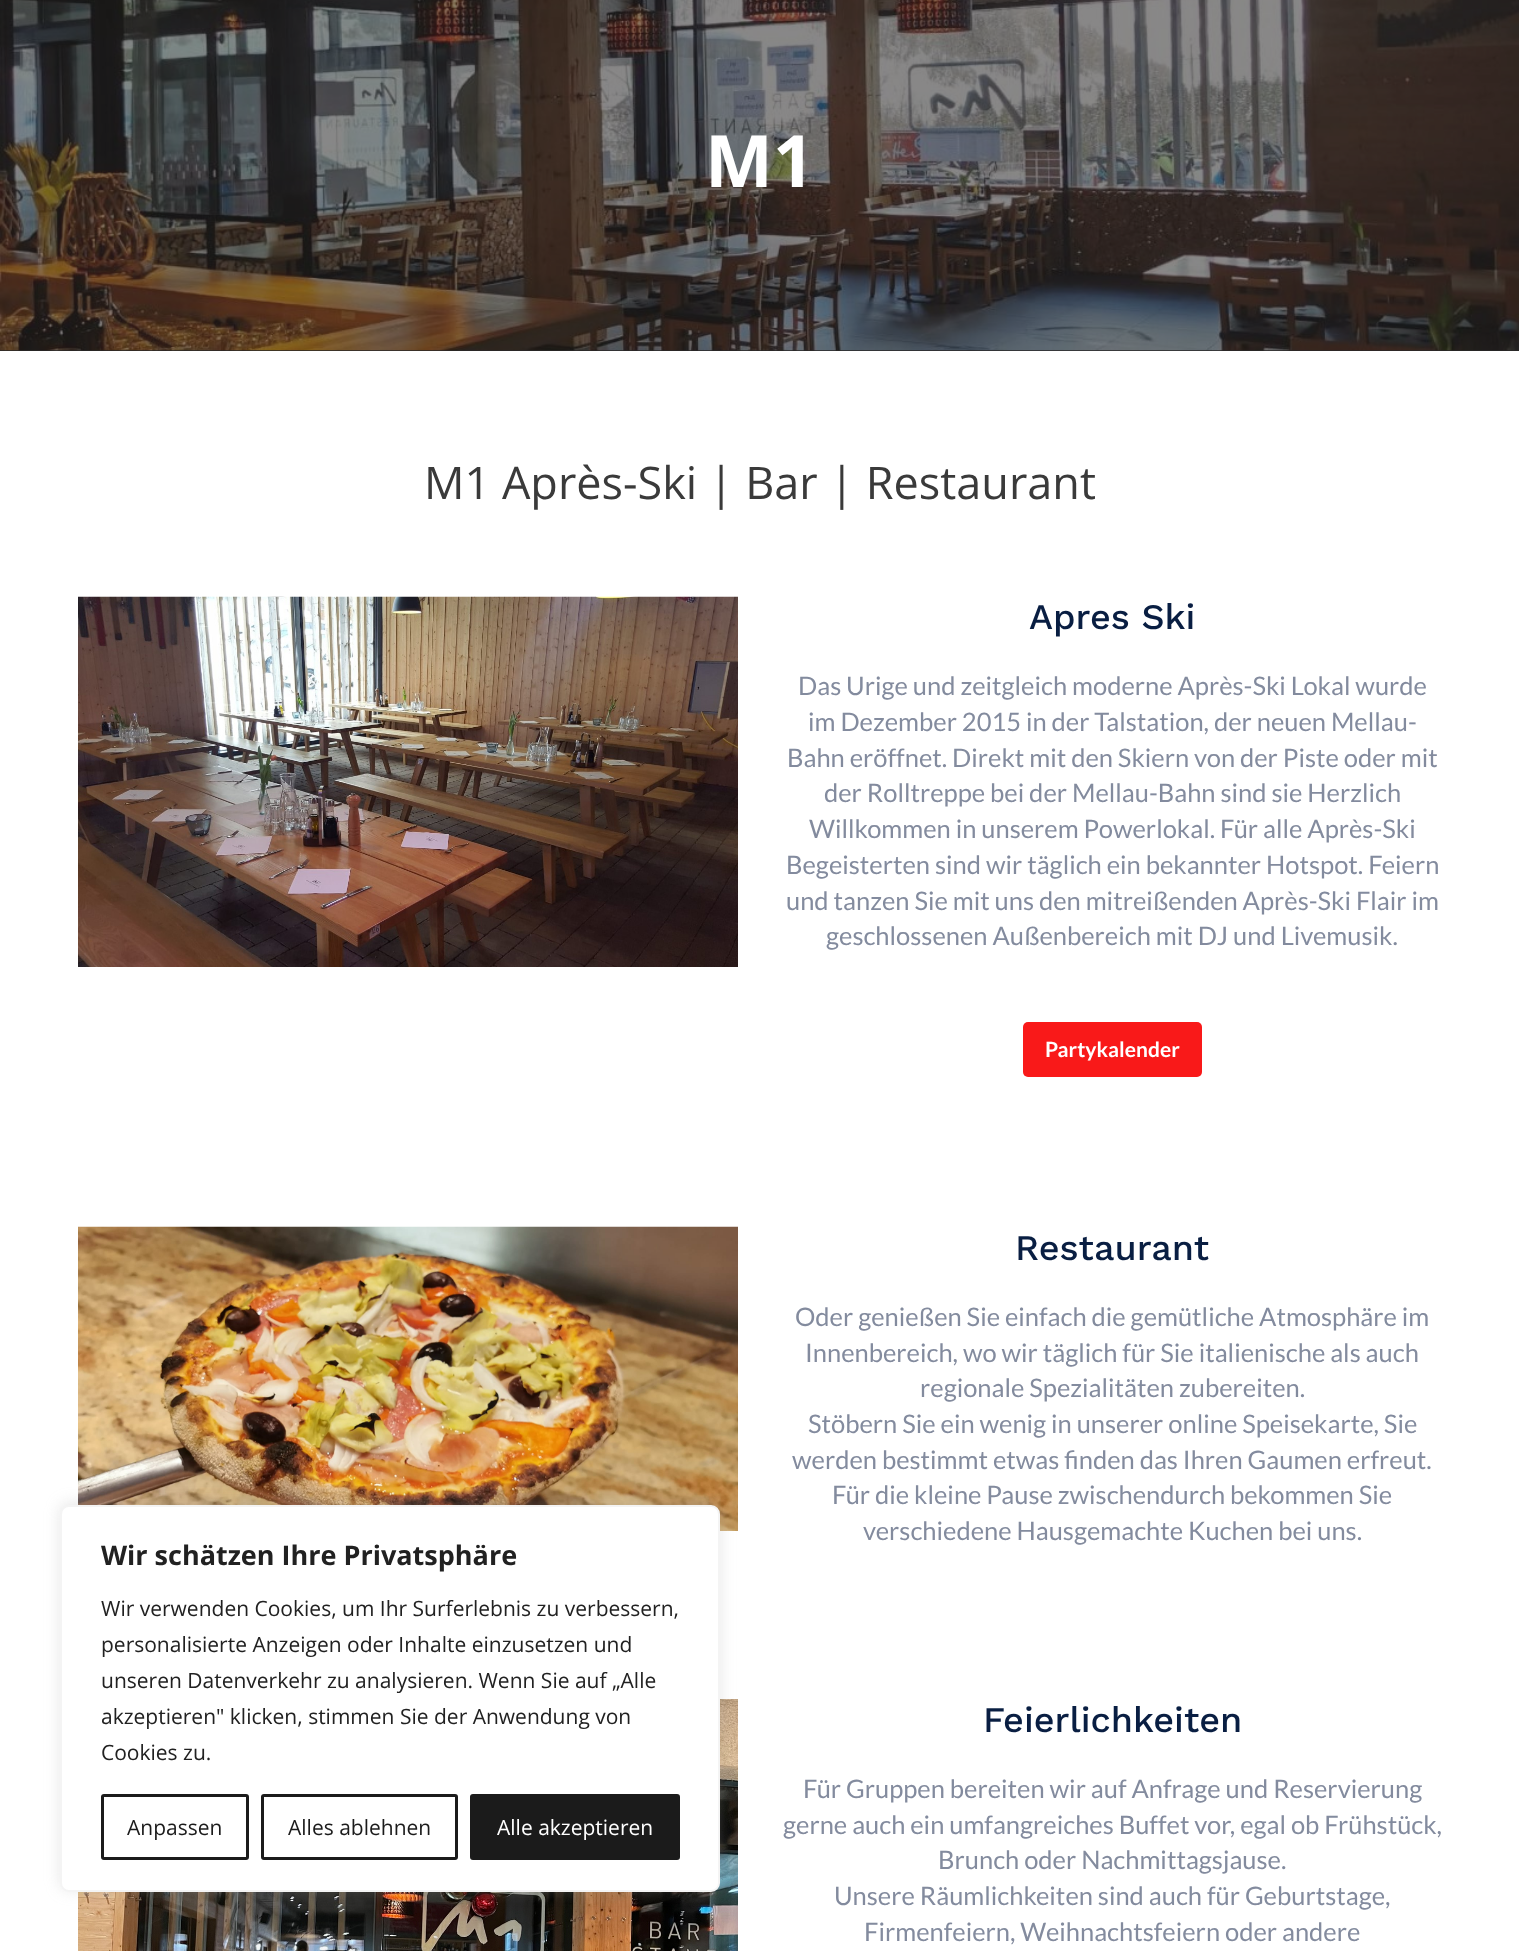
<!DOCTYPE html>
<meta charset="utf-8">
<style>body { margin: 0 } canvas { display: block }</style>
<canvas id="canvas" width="1519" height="1951"></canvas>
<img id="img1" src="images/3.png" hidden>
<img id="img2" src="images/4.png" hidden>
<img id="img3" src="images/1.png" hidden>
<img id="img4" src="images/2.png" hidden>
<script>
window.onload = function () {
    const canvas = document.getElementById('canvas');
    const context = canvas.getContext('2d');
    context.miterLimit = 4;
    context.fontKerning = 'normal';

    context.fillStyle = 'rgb(255, 255, 255)';
    context.fillRect(0, 0, 1519, 1951);
    context.drawImage(document.getElementById('img1'), 78, 1226, 660, 305);
    context.drawImage(document.getElementById('img2'), 78, 1699, 660, 252);
    context.fillStyle = 'rgba(172, 171, 171, 0.3)';
    context.filter = 'blur(7.5px)';
    context.beginPath();
    context.roundRect(60, 1503, 660, 387, 9);
    context.fill();
    context.filter = 'none';
    context.fillStyle = 'rgb(255, 255, 255)';
    context.beginPath();
    context.roundRect(61, 1506, 658, 385, 8);
    context.fill();
    context.strokeStyle = 'rgb(244, 244, 244)';
    context.lineWidth = 2;
    context.stroke();
    context.beginPath();
    context.roundRect(102.5, 1795.5, 145, 63, 1.5);
    context.strokeStyle = 'rgb(27, 27, 27)';
    context.lineWidth = 3;
    context.stroke();
    context.beginPath();
    context.roundRect(262.5, 1795.5, 194, 63, 1.5);
    context.stroke();
    context.fillStyle = 'rgb(27, 27, 27)';
    context.beginPath();
    context.roundRect(471.5, 1795.5, 207, 63, 1.5);
    context.fill();
    context.stroke();
    context.fillStyle = 'rgb(42, 41, 41)';
    context.fillRect(0, 350, 1519, 1);
    context.drawImage(document.getElementById('img3'), 0, 0, 1519, 351);
    context.drawImage(document.getElementById('img4'), 78, 596, 660, 371);
    context.fillStyle = 'rgb(249, 25, 25)';
    context.beginPath();
    context.roundRect(1023, 1022, 179, 55, 5);
    context.fill();
    context.font = 'bold 27px Open Sans';
    context.fillStyle = 'rgb(33, 33, 33)';
    context.fillText('Wir schätzen Ihre Privatsphäre', 101, 1565);
    context.font = '21px Open Sans';
    context.fillText('Wir verwenden Cookies, um Ihr Surferlebnis zu verbessern,', 101, 1616);
    context.fillText('personalisierte Anzeigen oder Inhalte einzusetzen und', 101, 1652);
    context.fillText('unseren Datenverkehr zu analysieren. Wenn Sie auf „Alle', 101, 1688);
    context.fillText('akzeptieren" klicken, stimmen Sie der Anwendung von', 101, 1724);
    context.fillText('Cookies zu.', 101, 1760);
    context.fillStyle = 'rgb(27, 27, 27)';
    context.fillText('Anpassen', 127, 1835);
    context.fillText('Alles ablehnen', 288, 1835);
    context.fillStyle = 'rgb(255, 255, 255)';
    context.fillText('Alle akzeptieren', 497, 1835);
    context.font = 'bold 72px Open Sans';
    context.fillText('M1', 705, 187);
    context.font = '45px Open Sans';
    context.fillStyle = 'rgb(58, 58, 58)';
    context.fillText('M1 Après-Ski | Bar | Restaurant', 424, 499);
    context.font = '500 36px Work Sans';
    context.fillStyle = 'rgb(9, 30, 66)';
    context.fillText('Apres Ski', 1029, 629);
    context.font = '25.5px Lato';
    context.fillStyle = 'rgb(131, 139, 158)';
    context.fillText('Das Urige und zeitgleich moderne Après-Ski Lokal wurde', 798, 695);
    context.fillText('im Dezember 2015 in der Talstation, der neuen Mellau-', 808, 731);
    context.fillText('Bahn eröffnet. Direkt mit den Skiern von der Piste oder mit', 787, 767);
    context.fillText('der Rolltreppe bei der Mellau-Bahn sind sie Herzlich', 824, 802);
    context.fillText('Willkommen in unserem Powerlokal. Für alle Après-Ski', 809, 838);
    context.fillText('Begeisterten sind wir täglich ein bekannter Hotspot. Feiern', 786, 874);
    context.fillText('und tanzen Sie mit uns den mitreißenden Après-Ski Flair im', 786, 910);
    context.fillText('geschlossenen Außenbereich mit DJ und Livemusik.', 826, 945);
    context.font = 'bold 21px Lato';
    context.fillStyle = 'rgb(255, 255, 255)';
    context.fillText('Partykalender', 1045, 1057);
    context.font = '500 36px Work Sans';
    context.fillStyle = 'rgb(9, 30, 66)';
    context.fillText('Restaurant', 1015, 1260);
    context.font = '25.5px Lato';
    context.fillStyle = 'rgb(131, 139, 158)';
    context.fillText('Oder genießen Sie einfach die gemütliche Atmosphäre im', 795, 1326);
    context.fillText('Innenbereich, wo wir täglich für Sie italienische als auch', 805, 1362);
    context.fillText('regionale Spezialitäten zubereiten.', 920, 1397);
    context.fillText('Stöbern Sie ein wenig in unserer online Speisekarte, Sie', 808, 1433);
    context.fillText('werden bestimmt etwas finden das Ihren Gaumen erfreut.', 792, 1469);
    context.fillText('Für die kleine Pause zwischendurch bekommen Sie', 832, 1504);
    context.fillText('verschiedene Hausgemachte Kuchen bei uns.', 863, 1540);
    context.font = '500 36px Work Sans';
    context.fillStyle = 'rgb(9, 30, 66)';
    context.fillText('Feierlichkeiten', 983, 1732);
    context.font = '25.5px Lato';
    context.fillStyle = 'rgb(131, 139, 158)';
    context.fillText('Für Gruppen bereiten wir auf Anfrage und Reservierung', 803, 1798);
    context.fillText('gerne auch ein umfangreiches Buffet vor, egal ob Frühstück,', 783, 1834);
    context.fillText('Brunch oder Nachmittagsjause.', 938, 1869);
    context.fillText('Unsere Räumlichkeiten sind auch für Geburtstage,', 834, 1905);
    context.fillText('Firmenfeiern, Weihnachtsfeiern oder andere', 864, 1941);
};
</script>
